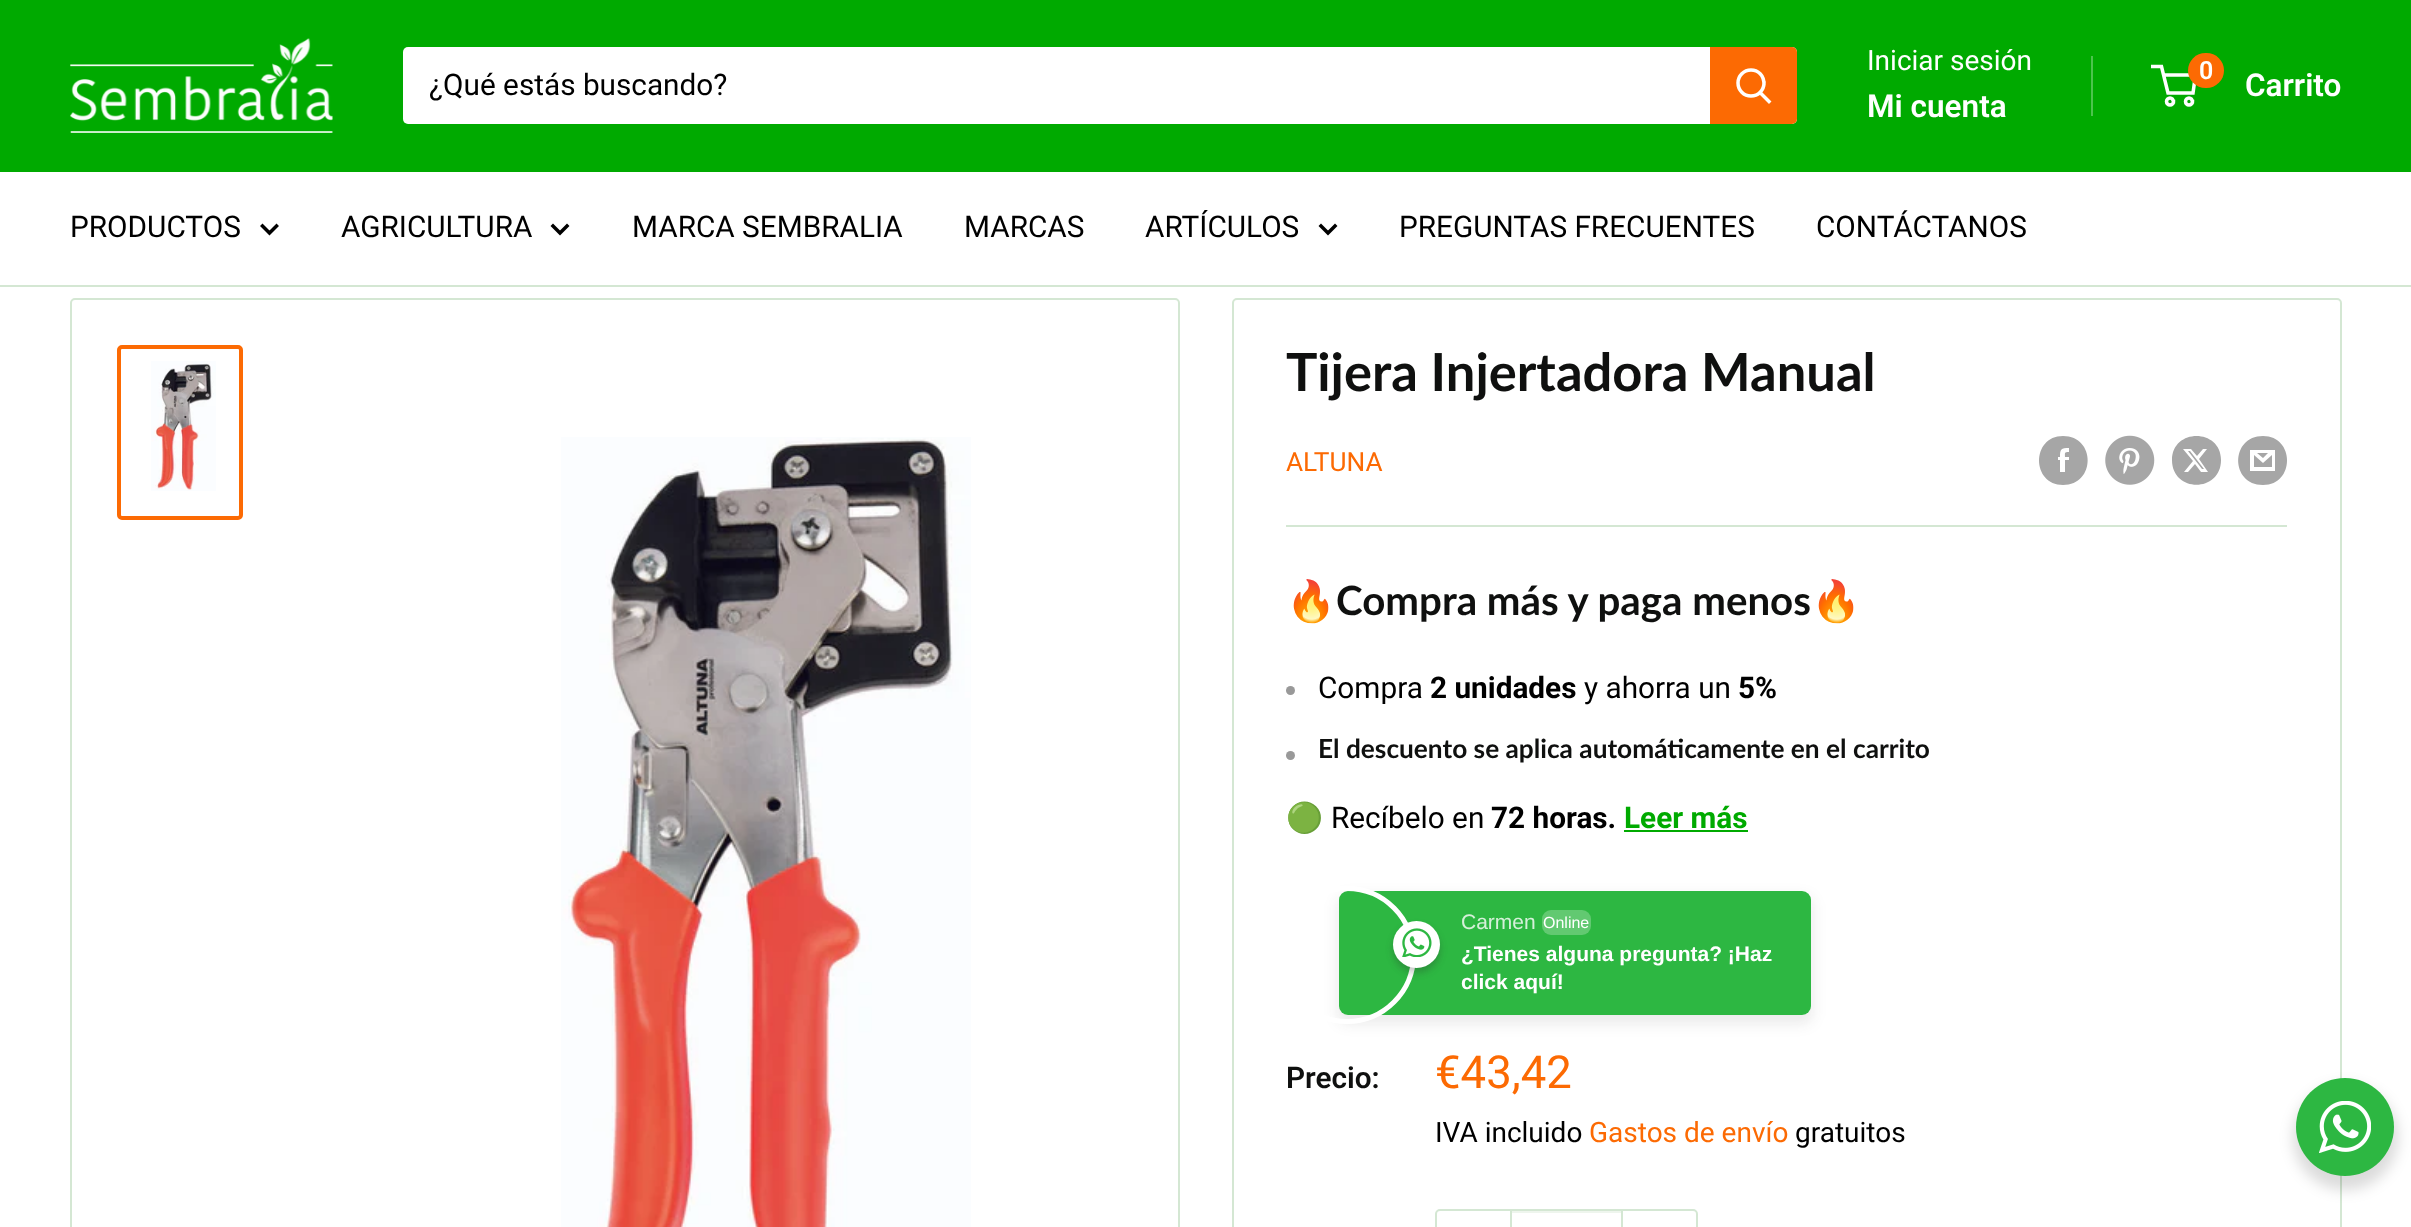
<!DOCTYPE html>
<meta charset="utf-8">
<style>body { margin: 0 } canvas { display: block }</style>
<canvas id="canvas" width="2411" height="1227"></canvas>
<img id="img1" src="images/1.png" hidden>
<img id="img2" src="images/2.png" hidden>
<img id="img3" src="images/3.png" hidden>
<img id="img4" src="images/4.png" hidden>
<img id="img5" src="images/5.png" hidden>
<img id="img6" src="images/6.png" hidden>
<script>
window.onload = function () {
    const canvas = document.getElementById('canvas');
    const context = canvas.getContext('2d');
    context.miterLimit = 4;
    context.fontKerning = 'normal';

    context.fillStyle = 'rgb(255, 255, 255)';
    context.fillRect(0, 0, 2411, 1227);
    context.fillStyle = 'rgb(0, 170, 0)';
    context.fillRect(0, 0, 2411, 172);
    context.drawImage(document.getElementById('img1'), 70, 38, 263, 95);
    context.fillStyle = 'rgb(255, 255, 255)';
    context.beginPath();
    context.roundRect(403, 47, 1394, 77, 5);
    context.fill();
    context.fillStyle = 'rgb(252, 106, 3)';
    context.beginPath();
    context.roundRect(1710, 47, 87, 77, [0, 5, 5, 0]);
    context.fill();
    context.beginPath();
    context.moveTo(1769, 101.5);
    context.lineTo(1760.5, 93);
    context.strokeStyle = 'rgb(255, 255, 255)';
    context.lineWidth = 3.5;
    context.lineCap = 'square';
    context.stroke();
    context.beginPath();
    context.arc(1751, 83, 13, 0, 2 * Math.PI);
    context.stroke();
    context.fillStyle = 'rgb(77, 196, 77)';
    context.fillRect(2091, 56, 2, 60);
    context.beginPath();
    context.arc(2170, 101.5, 3.5, 0, 2 * Math.PI);
    context.stroke();
    context.beginPath();
    context.arc(2189, 101.5, 3.5, 0, 2 * Math.PI);
    context.stroke();
    context.beginPath();
    context.moveTo(2163.5, 75);
    context.lineTo(2195.5, 75);
    context.lineTo(2193, 93);
    context.lineTo(2168, 93);
    context.lineTo(2161.5, 66.5);
    context.lineTo(2151, 66.5);
    context.lineCap = 'butt';
    context.stroke();
    context.fillStyle = 'rgb(252, 106, 3)';
    context.beginPath();
    context.roundRect(2188, 53, 36, 35, 17.5);
    context.fill();
    context.fillStyle = 'rgb(212, 231, 211)';
    context.fillRect(0, 285, 2411, 2);
    context.beginPath();
    context.moveTo(276.5, 226);
    context.lineTo(269.5, 233);
    context.lineTo(262.5, 226);
    context.strokeStyle = 'rgb(0, 0, 0)';
    context.lineCap = 'square';
    context.stroke();
    context.beginPath();
    context.moveTo(567, 226);
    context.lineTo(560, 233);
    context.lineTo(553, 226);
    context.stroke();
    context.beginPath();
    context.moveTo(1335, 226);
    context.lineTo(1328, 233);
    context.lineTo(1321, 226);
    context.stroke();
    context.beginPath();
    context.roundRect(71, 299, 1108, 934, 4);
    context.strokeStyle = 'rgb(212, 231, 211)';
    context.lineWidth = 2;
    context.stroke();
    context.beginPath();
    context.roundRect(119, 347, 122, 171, 3);
    context.strokeStyle = 'rgb(252, 106, 3)';
    context.lineWidth = 4;
    context.stroke();
    context.drawImage(document.getElementById('img2'), 151, 361, 65, 130);
    context.drawImage(document.getElementById('img3'), 561, 437, 410, 790);
    context.beginPath();
    context.roundRect(1233, 299, 1108, 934, 4);
    context.strokeStyle = 'rgb(212, 231, 211)';
    context.lineWidth = 2;
    context.stroke();
    context.fillStyle = 'rgb(166, 166, 166)';
    context.beginPath();
    context.moveTo(2063, 485);
    context.bezierCurveTo(2031, 485, 2031, 436, 2063, 436);
    context.bezierCurveTo(2096, 436, 2096, 485, 2063, 485);
    context.closePath();
    context.moveTo(2069, 457);
    context.lineTo(2065, 457);
    context.bezierCurveTo(2065, 453, 2064, 452, 2069, 452);
    context.lineTo(2069, 448);
    context.bezierCurveTo(2061, 448, 2060, 449, 2060, 457);
    context.lineTo(2058, 457);
    context.lineTo(2058, 460);
    context.lineTo(2060, 460);
    context.lineTo(2060, 472);
    context.lineTo(2065, 472);
    context.lineTo(2065, 460);
    context.lineTo(2069, 460);
    context.closePath();
    context.fill('evenodd');
    context.drawImage(document.getElementById('img4'), 2105, 435, 50, 50);
    context.beginPath();
    context.moveTo(2221, 460);
    context.bezierCurveTo(2221, 493, 2172, 493, 2172, 460);
    context.bezierCurveTo(2172, 428, 2221, 428, 2221, 460);
    context.closePath();
    context.moveTo(2207, 449);
    context.lineTo(2203, 449);
    context.lineTo(2197, 456);
    context.lineTo(2191, 449);
    context.lineTo(2183, 449);
    context.lineTo(2193, 461);
    context.lineTo(2184, 472);
    context.lineTo(2188, 472);
    context.lineTo(2195, 464);
    context.lineTo(2201, 472);
    context.lineTo(2208, 472);
    context.lineTo(2199, 459);
    context.closePath();
    context.moveTo(2204, 469);
    context.lineTo(2202, 469);
    context.lineTo(2188, 451);
    context.lineTo(2190, 451);
    context.closePath();
    context.fill('evenodd');
    context.beginPath();
    context.moveTo(2263, 485);
    context.bezierCurveTo(2230, 485, 2230, 436, 2263, 436);
    context.bezierCurveTo(2295, 436, 2295, 485, 2263, 485);
    context.closePath();
    context.moveTo(2257, 453);
    context.lineTo(2268, 453);
    context.lineTo(2263, 458);
    context.closePath();
    context.moveTo(2272, 455);
    context.lineTo(2272, 467);
    context.lineTo(2254, 467);
    context.lineTo(2254, 455);
    context.lineTo(2263, 463);
    context.closePath();
    context.moveTo(2275, 450);
    context.lineTo(2250, 450);
    context.lineTo(2250, 471);
    context.lineTo(2275, 471);
    context.closePath();
    context.fill();
    context.fillStyle = 'rgb(212, 231, 211)';
    context.fillRect(1286, 525, 1001, 2);
    context.fillStyle = 'rgb(153, 153, 153)';
    context.beginPath();
    context.arc(1290.5, 690.5, 4.5, 0, 2 * Math.PI);
    context.fill();
    context.beginPath();
    context.arc(1290.5, 755.5, 4.5, 0, 2 * Math.PI);
    context.fill();
    context.fillStyle = 'rgb(0, 170, 0)';
    context.fillRect(1624, 830, 124, 2);
    context.fillStyle = 'rgba(32, 32, 37, 0.09)';
    context.filter = 'blur(7px)';
    context.beginPath();
    context.roundRect(1337, 896, 476, 128, 11);
    context.fill();
    context.filter = 'none';
    context.fillStyle = 'rgb(45, 183, 66)';
    context.beginPath();
    context.roundRect(1339, 891, 472, 124, 9);
    context.fill();
    context.beginPath();
    context.arc(1347, 955, 66.5, 0, 2 * Math.PI);
    context.strokeStyle = 'rgb(255, 255, 255)';
    context.lineWidth = 5;
    context.stroke();
    context.fillStyle = 'rgba(39, 38, 38, 0.26)';
    context.filter = 'blur(3.5px)';
    context.beginPath();
    context.roundRect(1393, 926, 47, 47, 23.5);
    context.fill();
    context.filter = 'none';
    context.fillStyle = 'rgb(255, 255, 255)';
    context.beginPath();
    context.arc(1416.5, 944.5, 23.5, 0, 2 * Math.PI);
    context.fill();
    context.drawImage(document.getElementById('img5'), 1402, 928, 30, 29);
    context.fillStyle = 'rgb(98, 201, 113)';
    context.beginPath();
    context.roundRect(1542, 910, 49, 25, 9);
    context.fill();
    context.beginPath();
    context.roundRect(1436, 1210, 261, 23, 4);
    context.strokeStyle = 'rgb(212, 231, 211)';
    context.lineWidth = 2;
    context.stroke();
    context.fillStyle = 'rgb(238, 245, 237)';
    context.fillRect(1512, 1211, 109, 2);
    context.fillStyle = 'rgb(212, 231, 211)';
    context.fillRect(1621, 1211, 2, 16);
    context.fillRect(1510, 1211, 2, 16);
    context.fillStyle = 'rgba(0, 0, 0, 0.14)';
    context.filter = 'blur(7px)';
    context.beginPath();
    context.roundRect(2293, 1085, 105, 105, 52.5);
    context.fill();
    context.filter = 'none';
    context.fillStyle = 'rgb(45, 183, 66)';
    context.beginPath();
    context.arc(2345, 1127, 49, 0, 2 * Math.PI);
    context.fill();
    context.drawImage(document.getElementById('img6'), 2319, 1101, 52, 52);
    context.font = '29.75px Roboto';
    context.fillStyle = 'rgb(0, 0, 0)';
    context.fillText('¿Qué estás buscando?', 429, 95);
    context.font = '28px Roboto';
    context.fillStyle = 'rgb(255, 255, 255)';
    context.fillText('Iniciar sesión', 1867, 70);
    context.font = '600 31.5px Roboto';
    context.fillText('Mi cuenta', 1867, 117);
    context.font = '600 25px Roboto';
    context.fillText('0', 2199, 79);
    context.font = '600 31.5px Roboto';
    context.fillText('Carrito', 2245, 96);
    context.font = '29.75px Roboto';
    context.fillStyle = 'rgb(0, 0, 0)';
    context.fillText('PRODUCTOS', 70, 237);
    context.fillText('AGRICULTURA', 341, 237);
    context.fillText('MARCA SEMBRALIA', 632, 237);
    context.fillText('MARCAS', 964, 237);
    context.fillText('ARTÍCULOS', 1145, 237);
    context.fillText('PREGUNTAS FRECUENTES', 1399, 237);
    context.fillText('CONTÁCTANOS', 1816, 237);
    context.font = 'bold 52.5px Lato';
    context.fillStyle = 'rgb(15, 16, 15)';
    context.fillText('Tijera Injertadora Manual', 1286, 391);
    context.font = '26.25px Roboto';
    context.fillStyle = 'rgb(252, 106, 3)';
    context.fillText('ALTUNA', 1286, 471);
    context.font = 'bold 40.25px Noto Color Emoji';
    context.fillStyle = 'rgb(15, 16, 15)';
    context.fillText('🔥', 1286, 615);
    context.font = 'bold 40.25px Lato';
    context.fillText('Compra más y paga menos', 1336, 615);
    context.font = 'bold 40.25px Noto Color Emoji';
    context.fillText('🔥', 1811, 615);
    context.font = '29.75px Roboto';
    context.fillStyle = 'rgb(0, 0, 0)';
    context.fillText('Compra', 1318, 698);
    context.font = 'bold 29.75px Roboto';
    context.fillText('2 unidades', 1430, 698);
    context.font = '29.75px Roboto';
    context.fillText('y ahorra un', 1584, 698);
    context.font = 'bold 29.75px Roboto';
    context.fillText('5%', 1738, 698);
    context.font = 'bold 26.25px Lato';
    context.fillStyle = 'rgb(15, 16, 15)';
    context.fillText('El descuento se aplica automáticamente en el carrito', 1318, 758);
    context.font = '29.75px Noto Color Emoji';
    context.fillStyle = 'rgb(0, 0, 0)';
    context.fillText('🟢', 1286, 828);
    context.font = '29.75px Roboto';
    context.fillText('Recíbelo en', 1331, 828);
    context.font = 'bold 29.75px Roboto';
    context.fillText('72 horas.', 1491, 828);
    context.fillStyle = 'rgb(0, 170, 0)';
    context.fillText('Leer más', 1624, 828);
    context.font = '21px Liberation Sans';
    context.fillStyle = 'rgb(213, 240, 217)';
    context.fillText('Carmen', 1461, 929);
    context.font = '16px Liberation Sans';
    context.fillStyle = 'rgb(255, 255, 255)';
    context.fillText('Online', 1543, 928);
    context.font = 'bold 21px Liberation Sans';
    context.fillText('¿Tienes alguna pregunta? ¡Haz', 1461, 961);
    context.fillText('click aquí!', 1461, 989);
    context.font = '600 29.75px Roboto';
    context.fillStyle = 'rgb(15, 16, 15)';
    context.fillText('Precio:', 1286, 1088);
    context.font = '45.5px Roboto';
    context.fillStyle = 'rgb(252, 106, 3)';
    context.fillText('€43,42', 1435, 1088);
    context.font = '28px Roboto';
    context.fillStyle = 'rgb(0, 0, 0)';
    context.fillText('IVA incluido', 1435, 1142);
    context.fillStyle = 'rgb(252, 106, 3)';
    context.fillText('Gastos de envío', 1589, 1142);
    context.fillStyle = 'rgb(0, 0, 0)';
    context.fillText('gratuitos', 1795, 1142);
};
</script>
